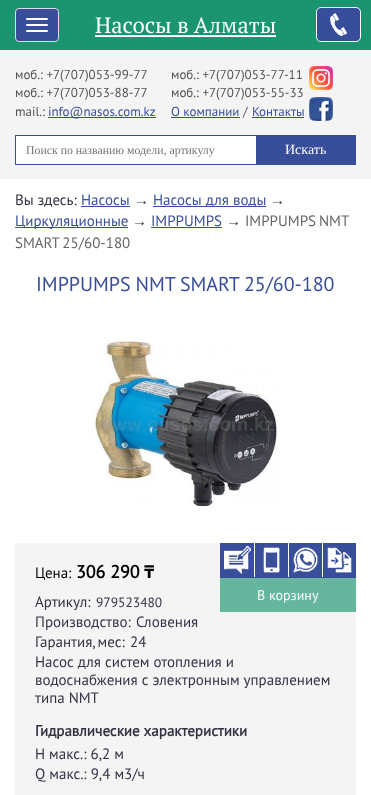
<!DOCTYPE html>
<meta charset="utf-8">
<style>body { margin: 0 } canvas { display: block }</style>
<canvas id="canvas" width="371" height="795"></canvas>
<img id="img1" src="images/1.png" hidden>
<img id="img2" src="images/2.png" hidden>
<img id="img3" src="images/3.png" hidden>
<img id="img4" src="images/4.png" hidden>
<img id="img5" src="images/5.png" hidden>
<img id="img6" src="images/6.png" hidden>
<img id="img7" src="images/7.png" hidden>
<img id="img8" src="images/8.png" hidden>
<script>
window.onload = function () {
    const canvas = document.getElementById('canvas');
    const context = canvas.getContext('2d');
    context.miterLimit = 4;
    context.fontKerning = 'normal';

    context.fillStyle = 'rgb(255, 255, 255)';
    context.fillRect(0, 0, 371, 795);
    context.fillStyle = 'rgb(244, 244, 244)';
    context.fillRect(0, 50, 371, 129);
    context.fillStyle = 'rgb(26, 149, 111)';
    context.fillRect(0, 0, 371, 50);
    context.fillStyle = 'rgb(57, 78, 154)';
    context.beginPath();
    context.roundRect(15.5, 8.5, 43, 33, 3.5);
    context.fill();
    context.strokeStyle = 'rgb(221, 221, 221)';
    context.stroke();
    context.fillStyle = 'rgb(255, 255, 255)';
    context.beginPath();
    context.roundRect(26, 18, 22, 2, 1);
    context.fill();
    context.beginPath();
    context.roundRect(26, 24, 22, 2, 1);
    context.fill();
    context.beginPath();
    context.roundRect(26, 30, 22, 2, 1);
    context.fill();
    context.fillRect(95, 35, 181, 2);
    context.fillStyle = 'rgb(57, 78, 154)';
    context.beginPath();
    context.roundRect(316.5, 7.5, 44, 34, 4.5);
    context.fill();
    context.strokeStyle = 'rgb(255, 255, 255)';
    context.stroke();
    context.drawImage(document.getElementById('img1'), 330, 13, 17, 23);
    context.fillRect(48, 117, 108, 1);
    context.fillRect(171, 117, 69, 1);
    context.fillRect(252, 117, 52, 1);
    context.drawImage(document.getElementById('img2'), 309, 66, 24, 24);
    context.drawImage(document.getElementById('img3'), 309, 97, 24, 24);
    context.fillStyle = 'rgb(255, 255, 255)';
    context.fillRect(16, 136, 240, 28);
    context.strokeStyle = 'rgb(56, 78, 154)';
    context.strokeRect(15.5, 135.5, 340, 29);
    context.fillStyle = 'rgb(57, 78, 154)';
    context.fillRect(256, 136, 99, 28);
    context.fillRect(81, 206, 49, 1);
    context.fillRect(153, 206, 113, 1);
    context.fillRect(15, 227, 113, 1);
    context.fillRect(151, 227, 71, 1);
    context.drawImage(document.getElementById('img4'), 92, 341, 187, 166);
    context.fillStyle = 'rgb(244, 244, 244)';
    context.fillRect(15, 543, 341, 252);
    context.fillStyle = 'rgb(57, 78, 154)';
    context.fillRect(220, 543, 136, 35);
    context.drawImage(document.getElementById('img5'), 221, 546, 31, 28);
    context.fillStyle = 'rgb(255, 255, 255)';
    context.fillRect(254, 543, 1, 34);
    context.drawImage(document.getElementById('img6'), 263, 547, 17, 26);
    context.fillRect(288, 543, 1, 34);
    context.drawImage(document.getElementById('img7'), 292, 547, 26, 27);
    context.fillRect(322, 543, 1, 34);
    context.drawImage(document.getElementById('img8'), 327, 547, 25, 26);
    context.fillStyle = 'rgb(102, 182, 158)';
    context.fillRect(220, 578, 136, 34);
    context.font = '22.25px PT Serif';
    context.fillStyle = 'rgb(251, 251, 251)';
    context.fillText('Насосы в Алматы', 95, 33);
    context.font = '13px PT Sans';
    context.fillStyle = 'rgb(82, 82, 82)';
    context.fillText('моб.: +7(707)053-99-77', 15, 79);
    context.fillText('моб.: +7(707)053-88-77', 15, 97);
    context.fillText('mail.:', 15, 116);
    context.fillStyle = 'rgb(57, 78, 154)';
    context.fillText('info@nasos.com.kz', 48, 116);
    context.fillStyle = 'rgb(82, 82, 82)';
    context.fillText('моб.: +7(707)053-77-11', 171, 79);
    context.fillText('моб.: +7(707)053-55-33', 171, 97);
    context.fillStyle = 'rgb(57, 78, 154)';
    context.fillText('О компании', 171, 116);
    context.fillStyle = 'rgb(82, 82, 82)';
    context.fillText('/', 243, 116);
    context.fillStyle = 'rgb(57, 78, 154)';
    context.fillText('Контакты', 252, 116);
    context.font = '11.8px Liberation Serif';
    context.fillStyle = 'rgb(117, 117, 117)';
    context.fillText('Поиск по названию модели, артикулу', 26, 154);
    context.font = '14px Liberation Serif';
    context.fillStyle = 'rgb(251, 251, 251)';
    context.fillText('Искать', 285, 154);
    context.font = '15px PT Sans';
    context.fillStyle = 'rgb(51, 51, 68)';
    context.fillText('Вы здесь:', 15, 205);
    context.fillStyle = 'rgb(57, 78, 154)';
    context.fillText('Насосы', 81, 205);
    context.font = '15px Liberation Sans';
    context.fillStyle = 'rgb(51, 51, 68)';
    context.fillText('→', 134, 205);
    context.font = '15px PT Sans';
    context.fillStyle = 'rgb(57, 78, 154)';
    context.fillText('Насосы для воды', 153, 205);
    context.font = '15px Liberation Sans';
    context.fillStyle = 'rgb(51, 51, 68)';
    context.fillText('→', 270, 205);
    context.font = '15px PT Sans';
    context.fillStyle = 'rgb(57, 78, 154)';
    context.fillText('Циркуляционные', 15, 226);
    context.font = '15px Liberation Sans';
    context.fillStyle = 'rgb(51, 51, 68)';
    context.fillText('→', 132, 226);
    context.font = '15px PT Sans';
    context.fillStyle = 'rgb(57, 78, 154)';
    context.fillText('IMPPUMPS', 151, 226);
    context.font = '15px Liberation Sans';
    context.fillStyle = 'rgb(51, 51, 68)';
    context.fillText('→', 226, 226);
    context.wordSpacing = '-1px';
    context.font = '15px PT Sans';
    context.fillStyle = 'rgb(102, 102, 102)';
    context.fillText('IMPPUMPS NMT', 245, 226);
    context.fillText('SMART 25/60-180', 15, 248);
    context.wordSpacing = '-0.5px';
    context.font = '20px PT Sans';
    context.fillStyle = 'rgb(57, 78, 154)';
    context.fillText('IMPPUMPS NMT SMART 25/60-180', 36, 291);
    context.wordSpacing = '0px';
    context.font = '15px PT Sans';
    context.fillStyle = 'rgb(0, 0, 0)';
    context.fillText('Цена:', 35, 578);
    context.font = 'bold 18px PT Sans';
    context.fillText('306 290', 76, 578);
    context.font = 'bold 18px Noto Sans';
    context.fillText('₸', 144, 578);
    context.font = '15px PT Sans';
    context.fillStyle = 'rgb(51, 51, 68)';
    context.fillText('Артикул:', 35, 607);
    context.font = '13.5px PT Sans';
    context.fillText('979523480', 96, 607);
    context.font = '14px PT Sans';
    context.fillStyle = 'rgb(251, 251, 251)';
    context.fillText('В корзину', 257, 600);
    context.font = '15px PT Sans';
    context.fillStyle = 'rgb(51, 51, 68)';
    context.fillText('Производство:', 35, 627);
    context.fillText('Словения', 136, 627);
    context.wordSpacing = '-1px';
    context.fillText('Гарантия, мес:', 35, 647);
    context.wordSpacing = '0px';
    context.fillText('24', 130, 647);
    context.fillText('Насос для систем отопления и', 35, 667);
    context.fillText('водоснабжения с электронным управлением', 35, 685);
    context.fillText('типа NMT', 35, 703);
    context.font = 'bold 15px PT Sans';
    context.fillText('Гидравлические характеристики', 35, 736);
    context.font = '15px PT Sans';
    context.fillText('H макс.: 6,2 м', 35, 759);
    context.fillText('Q макс.: 9,4 м3/ч', 35, 779);
};
</script>
